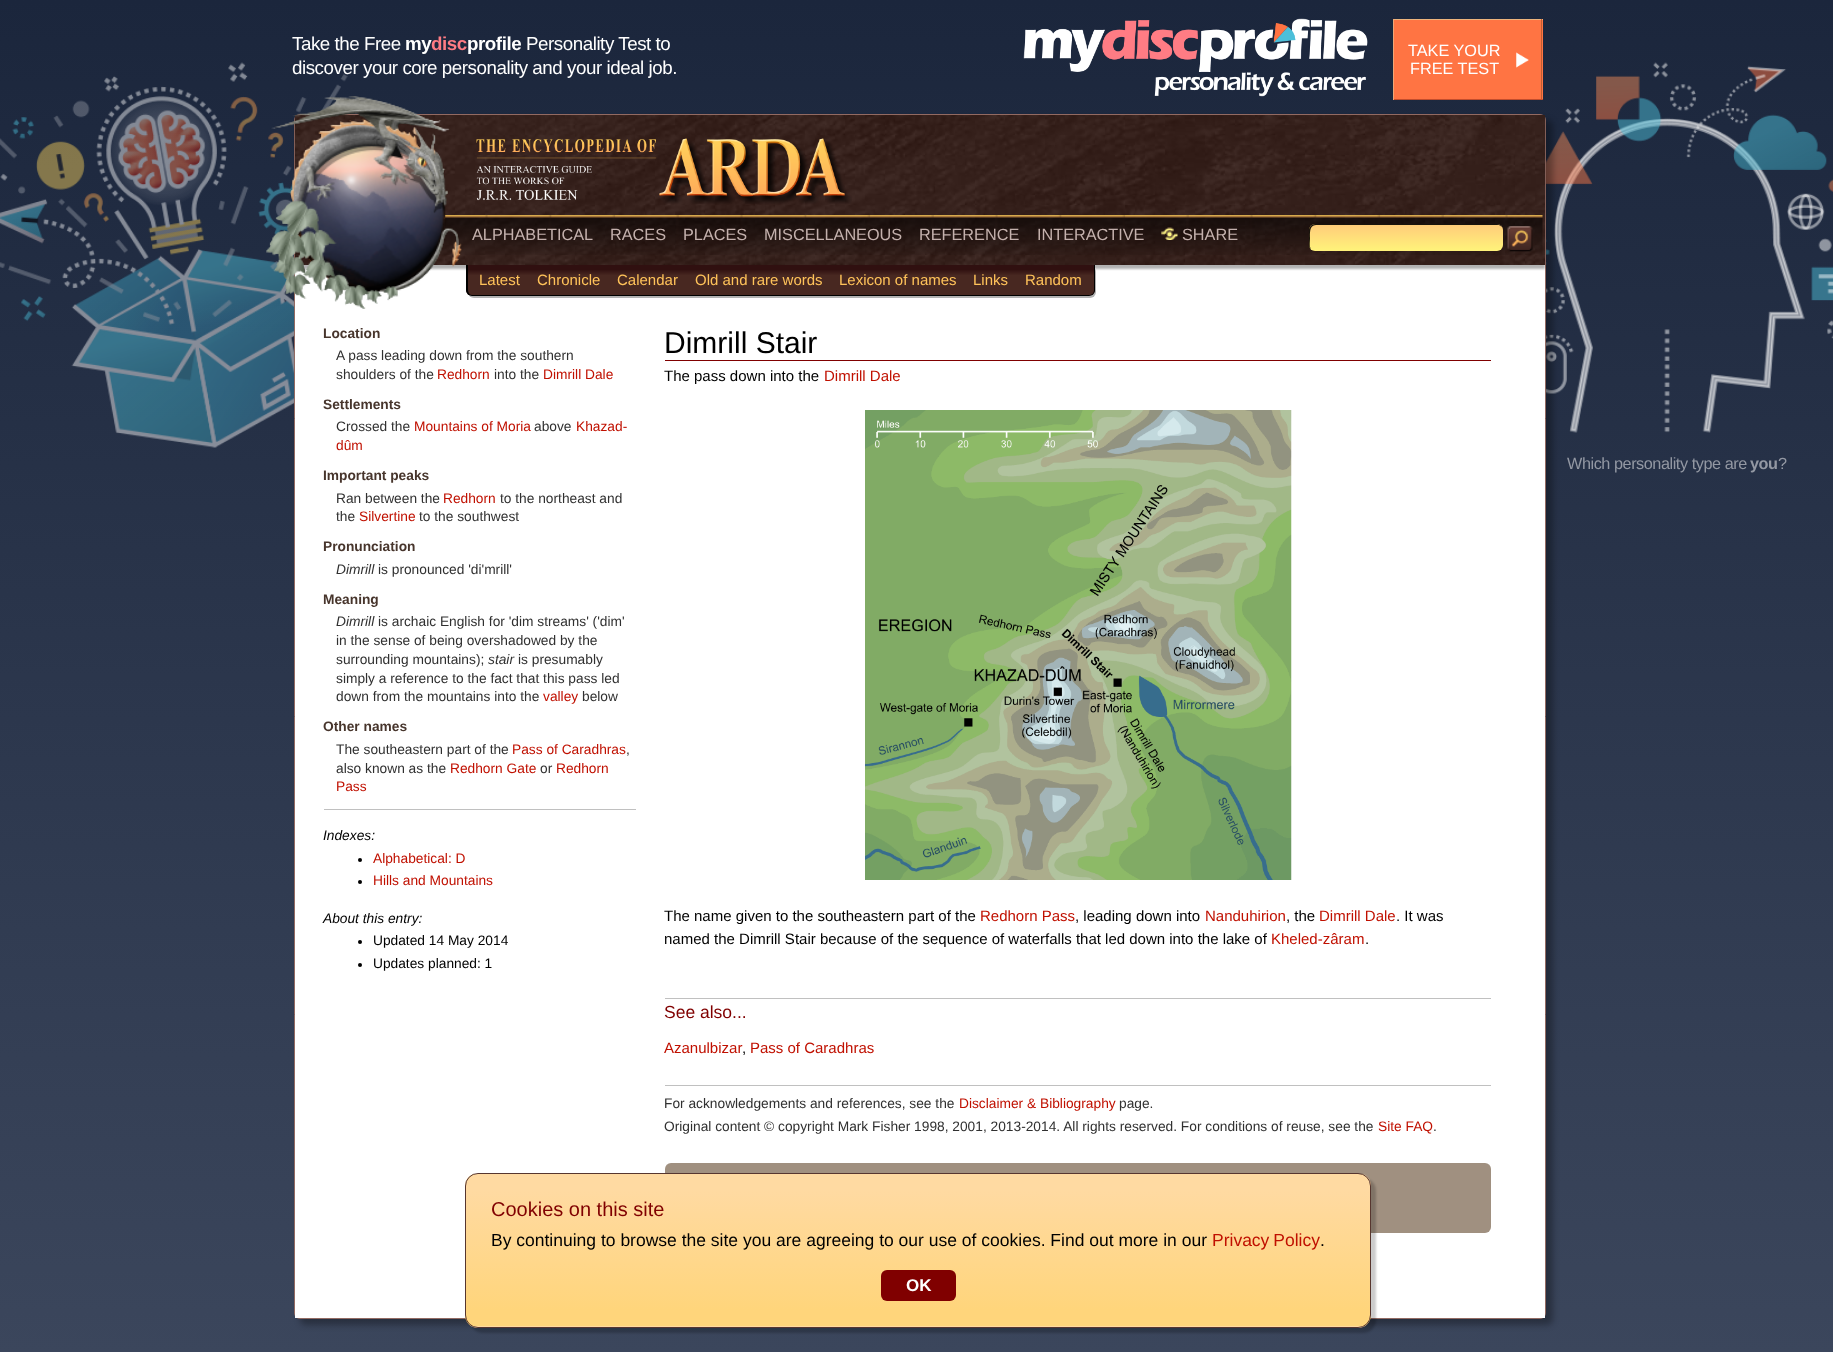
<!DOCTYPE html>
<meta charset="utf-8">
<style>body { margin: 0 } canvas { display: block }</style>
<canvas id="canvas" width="1833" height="1352"></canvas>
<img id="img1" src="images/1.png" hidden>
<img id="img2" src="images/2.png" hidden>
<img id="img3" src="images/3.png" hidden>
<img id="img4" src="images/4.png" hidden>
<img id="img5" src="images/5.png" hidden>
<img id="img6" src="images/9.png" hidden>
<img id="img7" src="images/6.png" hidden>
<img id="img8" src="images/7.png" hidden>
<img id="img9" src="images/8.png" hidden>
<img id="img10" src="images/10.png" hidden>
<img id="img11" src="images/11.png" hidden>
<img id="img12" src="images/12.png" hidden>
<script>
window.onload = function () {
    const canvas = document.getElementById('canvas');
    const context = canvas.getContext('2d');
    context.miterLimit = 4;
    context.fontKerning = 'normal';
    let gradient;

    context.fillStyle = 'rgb(255, 255, 255)';
    context.fillRect(0, 0, 1833, 1352);
    gradient = context.createLinearGradient(917, 0, 917, 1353);
    gradient.addColorStop(0, 'rgb(27, 38, 60)');
    gradient.addColorStop(1, 'rgb(59, 70, 92)');
    context.fillStyle = gradient;
    context.fillRect(0, 0, 1833, 1352);
    context.drawImage(document.getElementById('img1'), 0, 62, 348, 386);
    context.drawImage(document.getElementById('img2'), 1023, 18, 345, 79);
    context.fillStyle = 'rgb(255, 116, 67)';
    context.fillRect(1394, 20, 149, 79);
    context.drawImage(document.getElementById('img3'), 1516, 52, 13, 16);
    context.fillStyle = 'rgb(237, 180, 124)';
    context.fillRect(1393, 19, 150, 1);
    context.fillStyle = 'rgb(192, 95, 50)';
    context.fillRect(1541, 19, 1, 81);
    context.fillStyle = 'rgb(195, 77, 44)';
    context.fillRect(1393, 99, 150, 1);
    context.fillStyle = 'rgb(240, 167, 118)';
    context.fillRect(1393, 19, 1, 81);
    context.drawImage(document.getElementById('img4'), 1546, 62, 287, 371);
    context.fillStyle = 'rgba(0, 0, 0, 0.3)';
    context.filter = 'blur(3px)';
    context.beginPath();
    context.roundRect(300, 120, 1253, 1205, 6);
    context.fill();
    context.filter = 'none';
    context.beginPath();
    context.roundRect(294.5, 114.5, 1251, 1204, 5.5);
    context.strokeStyle = 'rgb(146, 106, 98)';
    context.stroke();
    context.fillStyle = 'rgb(255, 255, 255)';
    context.fillRect(295, 265, 1250, 1053);
    context.fillStyle = 'rgba(0, 0, 0, 0.3)';
    context.filter = 'blur(1px)';
    context.beginPath();
    context.rect(295, 119, 1250, 150);
    context.fill();
    context.filter = 'none';
    context.drawImage(document.getElementById('img5'), 295, 115, 1250, 150);
    context.drawImage(document.getElementById('img6'), 295, 215, 1248, 40);
    context.drawImage(document.getElementById('img7'), 266, 96, 196, 213);
    context.drawImage(document.getElementById('img8'), 266, 96, 196, 213);
    context.drawImage(document.getElementById('img9'), 476, 138, 376, 66);
    context.drawImage(document.getElementById('img10'), 1161, 227, 17, 13);
    gradient = context.createLinearGradient(1309, 224, 1309, 251);
    gradient.addColorStop(0.05, 'rgb(255, 205, 122)');
    gradient.addColorStop(0.95, 'rgb(255, 241, 122)');
    context.fillStyle = gradient;
    context.beginPath();
    context.roundRect(1309, 224, 194, 27, 6);
    context.fill();
    context.fillStyle = 'rgba(0, 0, 0, 0.9)';
    context.beginPath();
    context.moveTo(1316, 225);
    context.lineTo(1499, 225);
    context.lineTo(1502, 227);
    context.bezierCurveTo(1501, 225, 1499, 224, 1497, 224);
    context.lineTo(1315, 224);
    context.bezierCurveTo(1312, 224, 1309, 227, 1309, 230);
    context.lineTo(1309, 245);
    context.bezierCurveTo(1309, 247, 1310, 248, 1311, 249);
    context.bezierCurveTo(1309, 246, 1310, 242, 1310, 238);
    context.bezierCurveTo(1310, 234, 1309, 225, 1316, 225);
    context.closePath();
    context.fill();
    context.drawImage(document.getElementById('img11'), 1507, 226, 26, 26);
    context.fillStyle = 'rgba(0, 0, 0, 0.3)';
    context.filter = 'blur(0.5px)';
    context.beginPath();
    context.roundRect(468, 266, 628, 32, 6);
    context.fill();
    context.filter = 'none';
    context.save();
    context.beginPath();
    context.roundRect(466, 265, 629, 31, [0, 0, 6, 6]);
    context.clip();
    gradient = context.createLinearGradient(468, 265, 468, 295);
    gradient.addColorStop(0.15, 'rgb(48, 16, 16)');
    gradient.addColorStop(0.35, 'rgb(72, 40, 33)');
    context.fillStyle = gradient;
    context.fillRect(466, 265, 629, 30);
    context.restore();
    context.fillStyle = 'rgb(0, 0, 0)';
    context.beginPath();
    context.moveTo(466, 265);
    context.lineTo(1095, 265);
    context.lineTo(1095, 290);
    context.bezierCurveTo(1095, 293, 1092, 296, 1089, 296);
    context.lineTo(472, 296);
    context.bezierCurveTo(469, 296, 466, 293, 466, 290);
    context.closePath();
    context.moveTo(468, 265);
    context.lineTo(1094, 265);
    context.lineTo(1094, 290);
    context.bezierCurveTo(1094, 293, 1092, 295, 1089, 295);
    context.lineTo(472, 295);
    context.bezierCurveTo(470, 295, 468, 293, 468, 290);
    context.closePath();
    context.fill('evenodd');
    context.fillStyle = 'rgb(192, 192, 192)';
    context.fillRect(324, 809, 312, 1);
    context.fillStyle = 'rgb(0, 0, 0)';
    context.beginPath();
    context.arc(360, 860, 2, 0, 2 * Math.PI);
    context.fill();
    context.beginPath();
    context.arc(360, 882, 2, 0, 2 * Math.PI);
    context.fill();
    context.beginPath();
    context.arc(360, 942, 2, 0, 2 * Math.PI);
    context.fill();
    context.beginPath();
    context.arc(360, 965, 2, 0, 2 * Math.PI);
    context.fill();
    context.fillStyle = 'rgb(128, 0, 0)';
    context.fillRect(665, 360, 826, 1);
    context.drawImage(document.getElementById('img12'), 865, 410, 427, 470);
    context.fillStyle = 'rgb(192, 192, 192)';
    context.fillRect(665, 998, 826, 1);
    context.fillRect(665, 1085, 826, 1);
    context.fillStyle = 'rgb(160, 144, 128)';
    context.beginPath();
    context.roundRect(665, 1163, 826, 70, 6);
    context.fill();
    context.fillStyle = 'rgba(0, 0, 0, 0.2)';
    context.filter = 'blur(1px)';
    context.beginPath();
    context.roundRect(470, 1178, 906, 155, 13);
    context.fill();
    context.filter = 'none';
    context.save();
    context.beginPath();
    context.roundRect(465, 1173, 906, 155, 13);
    context.clip();
    gradient = context.createLinearGradient(466, 1174, 466, 1326);
    gradient.addColorStop(0.1, 'rgb(255, 218, 162)');
    gradient.addColorStop(0.9, 'rgb(255, 213, 123)');
    context.fillStyle = gradient;
    context.fillRect(465, 1174, 906, 152);
    gradient = context.createLinearGradient(466, 1326, 466, 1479);
    gradient.addColorStop(0.1, 'rgb(255, 218, 162)');
    gradient.addColorStop(0.9, 'rgb(255, 213, 123)');
    context.fillStyle = gradient;
    context.fillRect(465, 1326, 906, 2);
    context.restore();
    context.beginPath();
    context.roundRect(465.5, 1173.5, 905, 154, 12.5);
    context.strokeStyle = 'rgb(87, 54, 47)';
    context.stroke();
    context.fillStyle = 'rgb(128, 0, 0)';
    context.beginPath();
    context.roundRect(881, 1270, 75, 31, 6);
    context.fill();
    context.letterSpacing = '-0.45px';
    context.font = '18.75px Liberation Sans';
    context.fillStyle = 'rgb(255, 255, 255)';
    context.fillText('Take the Free', 292, 50);
    context.font = 'bold 18.75px Liberation Sans';
    context.fillText('my', 405, 50);
    context.fillStyle = 'rgb(255, 124, 132)';
    context.fillText('disc', 431, 50);
    context.fillStyle = 'rgb(255, 255, 255)';
    context.fillText('profile', 467, 50);
    context.font = '18.75px Liberation Sans';
    context.fillText('Personality Test to', 526, 50);
    context.fillText('discover your core personality and your ideal job.', 292, 74);
    context.letterSpacing = '0px';
    context.font = '16.25px Liberation Sans';
    context.fillText('TAKE YOUR', 1408, 56);
    context.fillText('FREE TEST', 1410, 74);
    context.fillStyle = 'rgb(196, 177, 173)';
    context.fillText('ALPHABETICAL', 472, 240);
    context.fillText('RACES', 610, 240);
    context.fillText('PLACES', 683, 240);
    context.fillText('MISCELLANEOUS', 764, 240);
    context.fillText('REFERENCE', 919, 240);
    context.fillText('INTERACTIVE', 1037, 240);
    context.fillText('SHARE', 1182, 240);
    context.font = '15px Liberation Sans';
    context.fillStyle = 'rgb(255, 195, 90)';
    context.fillText('Latest', 479, 285);
    context.fillText('Chronicle', 537, 285);
    context.fillText('Calendar', 617, 285);
    context.fillText('Old and rare words', 695, 285);
    context.fillText('Lexicon of names', 839, 285);
    context.fillText('Links', 973, 285);
    context.fillText('Random', 1025, 285);
    context.font = 'bold 13.75px Liberation Sans';
    context.fillStyle = 'rgb(71, 53, 44)';
    context.fillText('Location', 323, 338);
    context.font = '13.75px Liberation Sans';
    context.fillStyle = 'rgb(48, 48, 48)';
    context.fillText('A pass leading down from the southern', 336, 360);
    context.fillText('shoulders of the', 336, 379);
    context.fillStyle = 'rgb(192, 16, 0)';
    context.fillText('Redhorn', 437, 379);
    context.fillStyle = 'rgb(48, 48, 48)';
    context.fillText('into the', 494, 379);
    context.fillStyle = 'rgb(192, 16, 0)';
    context.fillText('Dimrill Dale', 543, 379);
    context.font = 'bold 13.75px Liberation Sans';
    context.fillStyle = 'rgb(71, 53, 44)';
    context.fillText('Settlements', 323, 409);
    context.font = '13.75px Liberation Sans';
    context.fillStyle = 'rgb(48, 48, 48)';
    context.fillText('Crossed the', 336, 431);
    context.fillStyle = 'rgb(192, 16, 0)';
    context.fillText('Mountains of Moria', 414, 431);
    context.fillStyle = 'rgb(48, 48, 48)';
    context.fillText('above', 534, 431);
    context.fillStyle = 'rgb(192, 16, 0)';
    context.fillText('Khazad-', 576, 431);
    context.fillText('dûm', 336, 450);
    context.font = 'bold 13.75px Liberation Sans';
    context.fillStyle = 'rgb(71, 53, 44)';
    context.fillText('Important peaks', 323, 480);
    context.font = '13.75px Liberation Sans';
    context.fillStyle = 'rgb(48, 48, 48)';
    context.fillText('Ran between the', 336, 503);
    context.fillStyle = 'rgb(192, 16, 0)';
    context.fillText('Redhorn', 443, 503);
    context.fillStyle = 'rgb(48, 48, 48)';
    context.fillText('to the northeast and', 500, 503);
    context.fillText('the', 336, 521);
    context.fillStyle = 'rgb(192, 16, 0)';
    context.fillText('Silvertine', 359, 521);
    context.fillStyle = 'rgb(48, 48, 48)';
    context.fillText('to the southwest', 419, 521);
    context.font = 'bold 13.75px Liberation Sans';
    context.fillStyle = 'rgb(71, 53, 44)';
    context.fillText('Pronunciation', 323, 551);
    context.font = 'italic 13.75px Liberation Sans';
    context.fillStyle = 'rgb(48, 48, 48)';
    context.fillText('Dimrill', 336, 574);
    context.font = '13.75px Liberation Sans';
    context.fillText('is pronounced \'di\'mrill\'', 378, 574);
    context.font = 'bold 13.75px Liberation Sans';
    context.fillStyle = 'rgb(71, 53, 44)';
    context.fillText('Meaning', 323, 604);
    context.font = 'italic 13.75px Liberation Sans';
    context.fillStyle = 'rgb(48, 48, 48)';
    context.fillText('Dimrill', 336, 626);
    context.font = '13.75px Liberation Sans';
    context.fillText('is archaic English for \'dim streams\' (\'dim\'', 378, 626);
    context.fillText('in the sense of being overshadowed by the', 336, 645);
    context.fillText('surrounding mountains);', 336, 664);
    context.font = 'italic 13.75px Liberation Sans';
    context.fillText('stair', 488, 664);
    context.font = '13.75px Liberation Sans';
    context.fillText('is presumably', 518, 664);
    context.fillText('simply a reference to the fact that this pass led', 336, 683);
    context.fillText('down from the mountains into the', 336, 701);
    context.fillStyle = 'rgb(192, 16, 0)';
    context.fillText('valley', 543, 701);
    context.fillStyle = 'rgb(48, 48, 48)';
    context.fillText('below', 582, 701);
    context.font = 'bold 13.75px Liberation Sans';
    context.fillStyle = 'rgb(71, 53, 44)';
    context.fillText('Other names', 323, 731);
    context.font = '13.75px Liberation Sans';
    context.fillStyle = 'rgb(48, 48, 48)';
    context.fillText('The southeastern part of the', 336, 754);
    context.fillStyle = 'rgb(192, 16, 0)';
    context.fillText('Pass of Caradhras', 512, 754);
    context.fillStyle = 'rgb(48, 48, 48)';
    context.fillText(',', 626, 754);
    context.fillText('also known as the', 336, 773);
    context.fillStyle = 'rgb(192, 16, 0)';
    context.fillText('Redhorn Gate', 450, 773);
    context.fillStyle = 'rgb(48, 48, 48)';
    context.fillText('or', 540, 773);
    context.fillStyle = 'rgb(192, 16, 0)';
    context.fillText('Redhorn', 556, 773);
    context.fillText('Pass', 336, 791);
    context.font = 'italic 13.75px Liberation Sans';
    context.fillStyle = 'rgb(0, 0, 0)';
    context.fillText('Indexes:', 323, 840);
    context.font = '13.75px Liberation Sans';
    context.fillStyle = 'rgb(192, 16, 0)';
    context.fillText('Alphabetical: D', 373, 863);
    context.fillText('Hills and Mountains', 373, 885);
    context.font = 'italic 13.75px Liberation Sans';
    context.fillStyle = 'rgb(0, 0, 0)';
    context.fillText('About this entry:', 323, 923);
    context.font = '13.75px Liberation Sans';
    context.fillText('Updated 14 May 2014', 373, 945);
    context.fillText('Updates planned: 1', 373, 968);
    context.font = '30px Liberation Sans';
    context.fillText('Dimrill Stair', 664, 353);
    context.font = '15px Liberation Sans';
    context.fillText('The pass down into the', 664, 381);
    context.fillStyle = 'rgb(192, 16, 0)';
    context.fillText('Dimrill Dale', 824, 381);
    context.fillStyle = 'rgb(0, 0, 0)';
    context.fillText('The name given to the southeastern part of the', 664, 921);
    context.fillStyle = 'rgb(192, 16, 0)';
    context.fillText('Redhorn Pass', 980, 921);
    context.fillStyle = 'rgb(0, 0, 0)';
    context.fillText(', leading down into', 1075, 921);
    context.fillStyle = 'rgb(192, 16, 0)';
    context.fillText('Nanduhirion', 1205, 921);
    context.fillStyle = 'rgb(0, 0, 0)';
    context.fillText(', the', 1286, 921);
    context.fillStyle = 'rgb(192, 16, 0)';
    context.fillText('Dimrill Dale', 1319, 921);
    context.fillStyle = 'rgb(0, 0, 0)';
    context.fillText('. It was', 1396, 921);
    context.fillText('named the Dimrill Stair because of the sequence of waterfalls that led down into the lake of', 664, 944);
    context.fillStyle = 'rgb(192, 16, 0)';
    context.fillText('Kheled-zâram', 1271, 944);
    context.fillStyle = 'rgb(0, 0, 0)';
    context.fillText('.', 1365, 944);
    context.font = '17.5px Liberation Sans';
    context.fillStyle = 'rgb(128, 0, 0)';
    context.fillText('See also...', 664, 1018);
    context.font = '15px Liberation Sans';
    context.fillStyle = 'rgb(192, 16, 0)';
    context.fillText('Azanulbizar', 664, 1053);
    context.fillStyle = 'rgb(0, 0, 0)';
    context.fillText(',', 742, 1053);
    context.fillStyle = 'rgb(192, 16, 0)';
    context.fillText('Pass of Caradhras', 750, 1053);
    context.font = '13.75px Liberation Sans';
    context.fillStyle = 'rgb(48, 48, 48)';
    context.fillText('For acknowledgements and references, see the', 664, 1108);
    context.fillStyle = 'rgb(192, 16, 0)';
    context.fillText('Disclaimer & Bibliography', 959, 1108);
    context.fillStyle = 'rgb(48, 48, 48)';
    context.fillText('page.', 1119, 1108);
    context.fillText('Original content © copyright Mark Fisher 1998, 2001, 2013-2014. All rights reserved. For conditions of reuse, see the', 664, 1131);
    context.fillStyle = 'rgb(192, 16, 0)';
    context.fillText('Site FAQ', 1378, 1131);
    context.fillStyle = 'rgb(48, 48, 48)';
    context.fillText('.', 1433, 1131);
    context.letterSpacing = '-0.45px';
    context.font = '16.25px Liberation Sans';
    context.fillStyle = 'rgb(147, 152, 163)';
    context.fillText('Which personality type are', 1567, 469);
    context.font = 'bold 16.25px Liberation Sans';
    context.fillText('you', 1750, 469);
    context.font = '16.25px Liberation Sans';
    context.fillText('?', 1778, 469);
    context.letterSpacing = '0px';
    context.font = '20px Liberation Sans';
    context.fillStyle = 'rgb(128, 0, 0)';
    context.fillText('Cookies on this site', 491, 1216);
    context.font = '17.5px Liberation Sans';
    context.fillStyle = 'rgb(0, 0, 0)';
    context.fillText('By continuing to browse the site you are agreeing to our use of cookies. Find out more in our', 491, 1246);
    context.wordSpacing = '-1px';
    context.fillStyle = 'rgb(192, 16, 0)';
    context.fillText('Privacy Policy', 1212, 1246);
    context.wordSpacing = '0px';
    context.fillStyle = 'rgb(0, 0, 0)';
    context.fillText('.', 1320, 1246);
    context.font = 'bold 17px Liberation Sans';
    context.fillStyle = 'rgb(255, 255, 255)';
    context.fillText('OK', 906, 1291);
};
</script>
